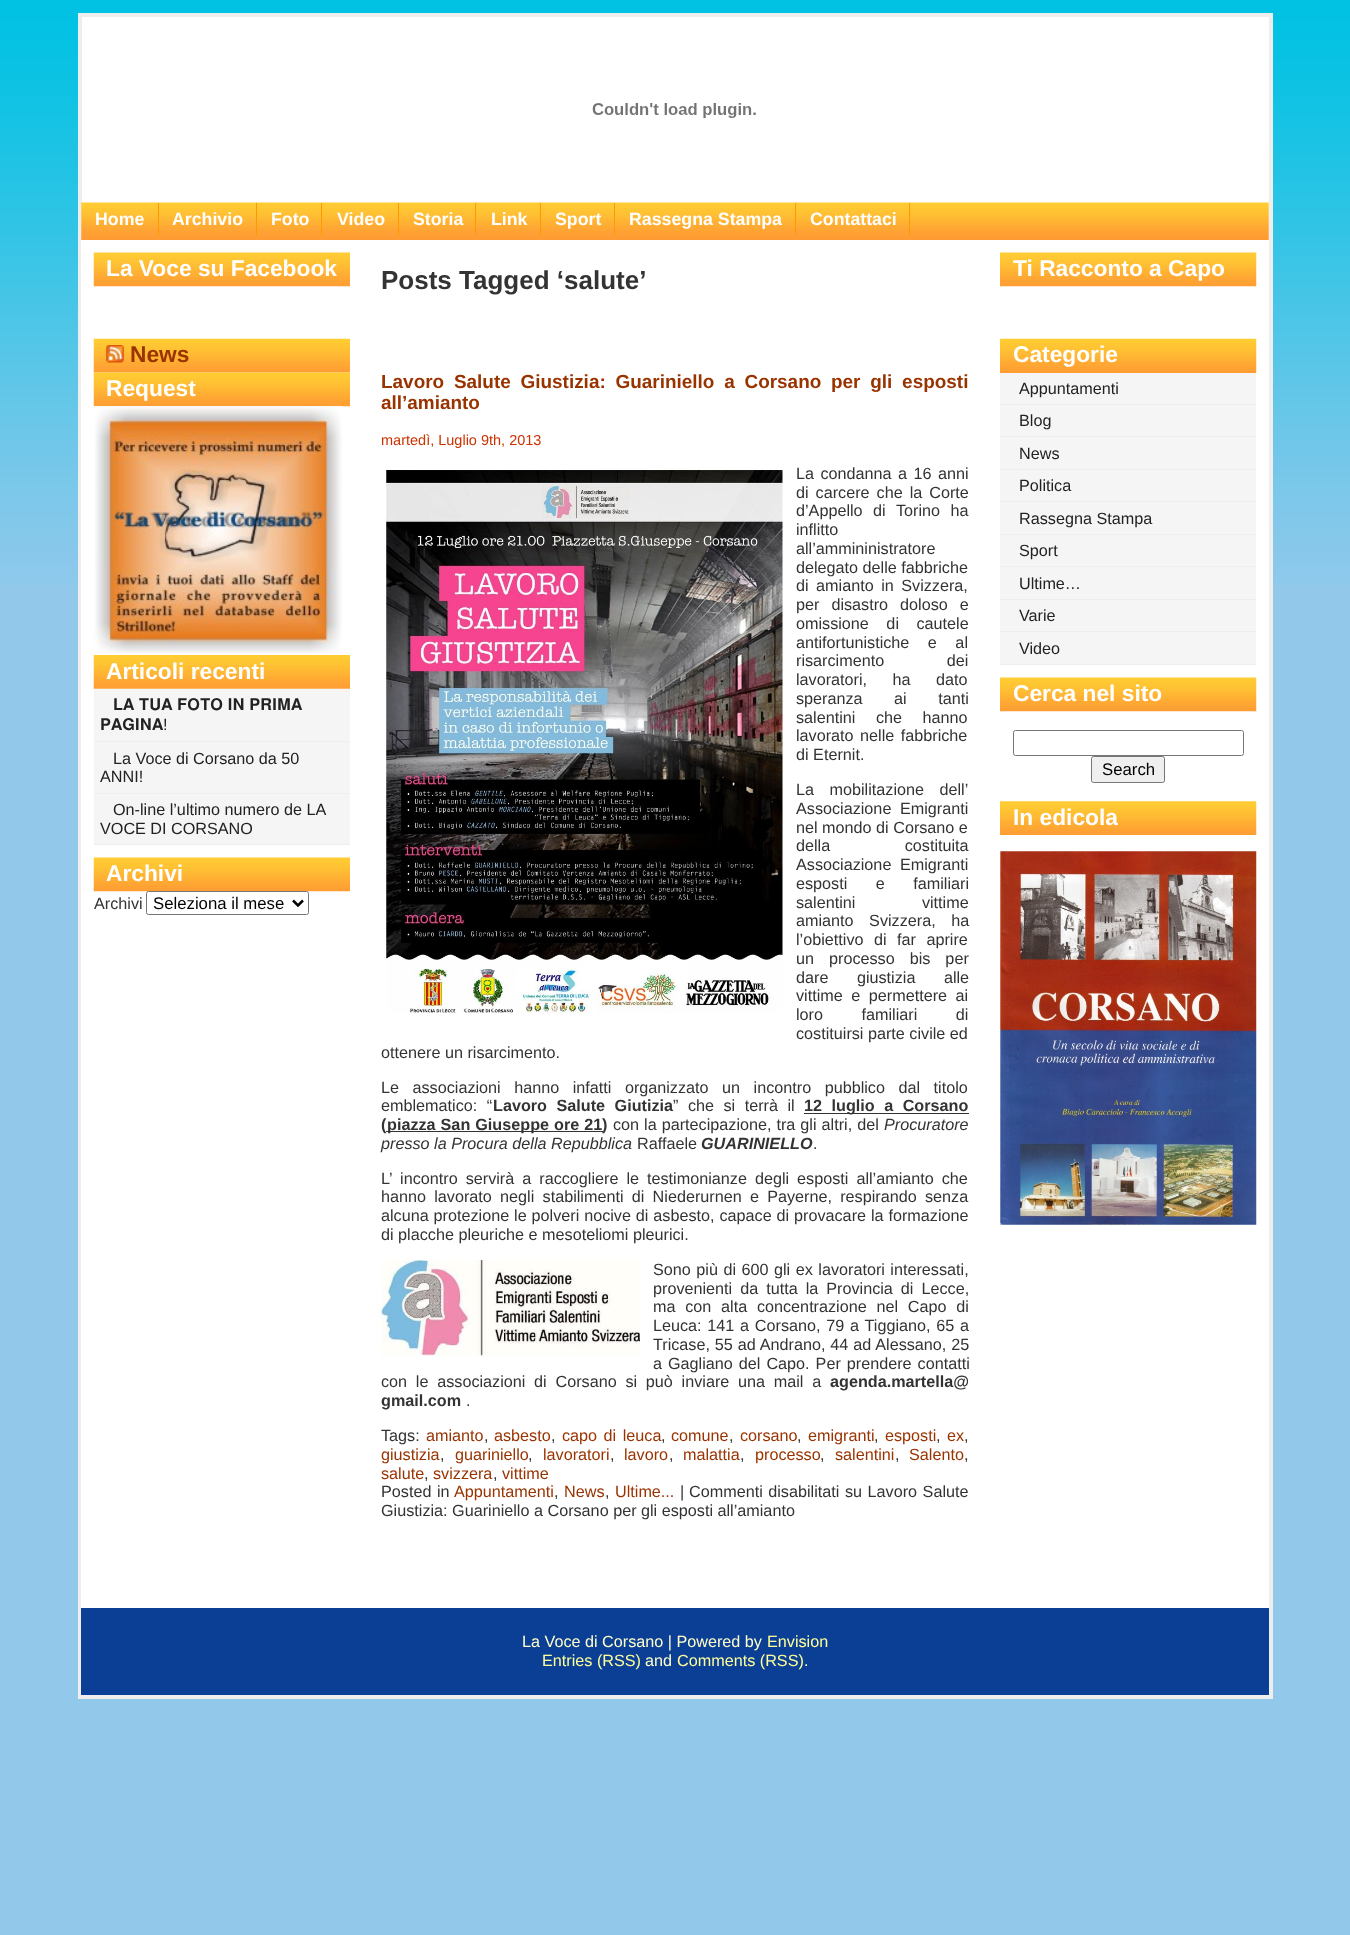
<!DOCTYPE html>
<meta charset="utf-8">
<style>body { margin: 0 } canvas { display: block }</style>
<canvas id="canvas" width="1350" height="1935"></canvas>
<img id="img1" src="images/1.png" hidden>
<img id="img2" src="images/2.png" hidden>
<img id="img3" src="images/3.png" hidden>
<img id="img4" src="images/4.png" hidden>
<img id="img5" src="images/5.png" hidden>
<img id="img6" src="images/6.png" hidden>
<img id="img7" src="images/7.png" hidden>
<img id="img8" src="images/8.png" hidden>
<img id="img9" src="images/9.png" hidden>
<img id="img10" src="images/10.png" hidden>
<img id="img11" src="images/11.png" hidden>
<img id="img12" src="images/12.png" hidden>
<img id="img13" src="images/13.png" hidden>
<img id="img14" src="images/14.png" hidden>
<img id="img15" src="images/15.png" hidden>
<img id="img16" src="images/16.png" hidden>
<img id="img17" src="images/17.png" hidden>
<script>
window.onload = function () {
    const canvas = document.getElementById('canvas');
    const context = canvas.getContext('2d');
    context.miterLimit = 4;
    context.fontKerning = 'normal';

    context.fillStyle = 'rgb(146, 201, 235)';
    context.fillRect(0, 0, 1350, 1935);
    context.drawImage(document.getElementById('img1'), 0, 0, 1350, 13);
    context.drawImage(document.getElementById('img2'), 0, 13, 1350, 572);
    context.fillStyle = 'rgb(255, 255, 255)';
    context.fillRect(82, 17, 1187, 223);
    context.strokeStyle = 'rgb(238, 238, 238)';
    context.lineWidth = 4;
    context.strokeRect(80, 15, 1191, 1682);
    context.drawImage(document.getElementById('img3'), 592, 103, 164, 15);
    context.drawImage(document.getElementById('img4'), 81, 202, 1188, 38);
    context.fillStyle = 'rgb(255, 153, 0)';
    context.fillRect(158, 203, 1, 32);
    context.fillRect(256, 203, 1, 32);
    context.fillRect(321, 203, 1, 32);
    context.fillRect(398, 203, 1, 32);
    context.fillRect(475, 203, 1, 32);
    context.fillRect(540, 203, 1, 32);
    context.fillRect(614, 203, 1, 32);
    context.fillRect(795, 203, 1, 32);
    context.fillRect(909, 203, 1, 32);
    context.fillStyle = 'rgb(255, 255, 255)';
    context.fillRect(81, 240, 1188, 1368);
    context.drawImage(document.getElementById('img5'), 93, 252, 257, 35);
    context.drawImage(document.getElementById('img6'), 93, 338, 257, 35);
    context.drawImage(document.getElementById('img7'), 106, 345, 18, 18);
    context.drawImage(document.getElementById('img8'), 93, 372, 257, 35);
    context.drawImage(document.getElementById('img9'), 94, 406, 249, 248);
    context.drawImage(document.getElementById('img10'), 93, 655, 257, 34);
    context.fillStyle = 'rgb(245, 245, 245)';
    context.fillRect(94, 689, 256, 104);
    context.fillStyle = 'rgb(238, 238, 238)';
    context.fillRect(94, 741, 256, 1);
    context.fillRect(94, 793, 256, 1);
    context.fillStyle = 'rgb(245, 245, 245)';
    context.fillRect(94, 794, 256, 50);
    context.fillStyle = 'rgb(238, 238, 238)';
    context.fillRect(94, 844, 256, 1);
    context.drawImage(document.getElementById('img5'), 93, 857, 257, 35);
    context.fillStyle = 'rgb(255, 255, 255)';
    context.beginPath();
    context.roundRect(146.5, 891.5, 162, 23, 2);
    context.fill();
    context.strokeStyle = 'rgb(118, 118, 118)';
    context.lineWidth = 1;
    context.stroke();
    context.beginPath();
    context.moveTo(293, 900.5);
    context.lineTo(298, 905.5);
    context.lineTo(303, 900.5);
    context.strokeStyle = 'rgb(0, 0, 0)';
    context.lineWidth = 2.5;
    context.stroke();
    context.drawImage(document.getElementById('img11'), 386, 470, 397, 543);
    context.fillStyle = 'rgb(51, 51, 51)';
    context.fillRect(804, 1113, 165, 1);
    context.fillRect(386, 1131, 217, 1);
    context.drawImage(document.getElementById('img12'), 381, 1260, 259, 96);
    context.drawImage(document.getElementById('img13'), 1000, 252, 257, 35);
    context.fillStyle = 'rgb(255, 159, 51)';
    context.fillRect(1000, 372, 256, 1);
    context.drawImage(document.getElementById('img14'), 1000, 338, 257, 35);
    context.fillStyle = 'rgb(245, 245, 245)';
    context.fillRect(1000, 373, 256, 31);
    context.fillStyle = 'rgb(238, 238, 238)';
    context.fillRect(1000, 404, 256, 1);
    context.fillStyle = 'rgb(245, 245, 245)';
    context.fillRect(1000, 405, 256, 64);
    context.fillStyle = 'rgb(238, 238, 238)';
    context.fillRect(1000, 436, 256, 1);
    context.fillRect(1000, 469, 256, 1);
    context.fillStyle = 'rgb(245, 245, 245)';
    context.fillRect(1000, 470, 256, 64);
    context.fillStyle = 'rgb(238, 238, 238)';
    context.fillRect(1000, 501, 256, 1);
    context.fillRect(1000, 534, 256, 1);
    context.fillStyle = 'rgb(245, 245, 245)';
    context.fillRect(1000, 535, 256, 64);
    context.fillStyle = 'rgb(238, 238, 238)';
    context.fillRect(1000, 566, 256, 1);
    context.fillRect(1000, 599, 256, 1);
    context.fillStyle = 'rgb(245, 245, 245)';
    context.fillRect(1000, 600, 256, 64);
    context.fillStyle = 'rgb(238, 238, 238)';
    context.fillRect(1000, 631, 256, 1);
    context.fillRect(1000, 664, 256, 1);
    context.drawImage(document.getElementById('img15'), 1000, 677, 257, 35);
    context.beginPath();
    context.roundRect(1013.5, 730.5, 230, 25, 2);
    context.strokeStyle = 'rgb(118, 118, 118)';
    context.lineWidth = 1;
    context.stroke();
    context.fillStyle = 'rgb(239, 239, 239)';
    context.beginPath();
    context.roundRect(1091.5, 756.5, 73, 26, 2);
    context.fill();
    context.stroke();
    context.drawImage(document.getElementById('img16'), 1000, 801, 257, 34);
    context.drawImage(document.getElementById('img17'), 1000, 851, 257, 374);
    context.fillStyle = 'rgb(10, 63, 149)';
    context.fillRect(81, 1608, 1188, 87);
    context.font = 'bold 17.75px Liberation Sans';
    context.fillStyle = 'rgb(255, 255, 255)';
    context.fillText('Home', 95, 225);
    context.fillText('Archivio', 172, 225);
    context.fillText('Foto', 271, 225);
    context.fillText('Video', 337, 225);
    context.fillText('Storia', 413, 225);
    context.fillText('Link', 491, 225);
    context.fillText('Sport', 555, 225);
    context.fillText('Rassegna Stampa', 629, 225);
    context.fillText('Contattaci', 810, 225);
    context.font = 'bold 22.75px Liberation Sans';
    context.fillText('La Voce su Facebook', 106, 276);
    context.fillStyle = 'rgb(153, 51, 0)';
    context.fillText('News', 130, 362);
    context.fillStyle = 'rgb(255, 255, 255)';
    context.fillText('Request', 106, 396);
    context.fillText('Articoli recenti', 106, 679);
    context.wordSpacing = '0.5px';
    context.font = '16.2px FreeSans';
    context.fillStyle = 'rgb(34, 34, 34)';
    context.fillText('𝐋𝐀 𝐓𝐔𝐀 𝐅𝐎𝐓𝐎 𝐈𝐍 𝐏𝐑𝐈𝐌𝐀', 113, 710);
    context.wordSpacing = '0px';
    context.fillText('𝐏𝐀𝐆𝐈𝐍𝐀', 100, 730);
    context.font = '16.2px Liberation Sans';
    context.fillText('!', 163, 730);
    context.fillText('La Voce di Corsano da 50', 113, 764);
    context.fillText('ANNI!', 100, 782);
    context.fillText('On-line l’ultimo numero de LA', 113, 815);
    context.fillText('VOCE DI CORSANO', 100, 834);
    context.font = 'bold 22.75px Liberation Sans';
    context.fillStyle = 'rgb(255, 255, 255)';
    context.fillText('Archivi', 106, 881);
    context.font = '16.2px Liberation Sans';
    context.fillStyle = 'rgb(51, 51, 51)';
    context.fillText('Archivi', 94, 909);
    context.font = '16.75px Liberation Sans';
    context.fillStyle = 'rgb(0, 0, 0)';
    context.fillText('Seleziona il mese', 153, 909);
    context.font = 'bold 26px Liberation Sans';
    context.fillStyle = 'rgb(51, 51, 51)';
    context.fillText('Posts Tagged ‘salute’', 381, 289);
    context.wordSpacing = '4.5px';
    context.font = 'bold 18.95px Liberation Sans';
    context.fillStyle = 'rgb(153, 51, 0)';
    context.fillText('Lavoro Salute Giustizia: Guariniello a Corsano per gli esposti', 381, 388);
    context.wordSpacing = '0px';
    context.fillText('all’amianto', 381, 409);
    context.font = '14.5px Liberation Sans';
    context.fillStyle = 'rgb(204, 51, 0)';
    context.fillText('martedì, Luglio 9th, 2013', 381, 445);
    context.wordSpacing = '2px';
    context.font = '16.2px Liberation Sans';
    context.fillStyle = 'rgb(51, 51, 51)';
    context.fillText('La condanna a 16 anni', 796, 479);
    context.wordSpacing = '2.5px';
    context.fillText('di carcere che la Corte', 796, 498);
    context.wordSpacing = '6px';
    context.fillText('d’Appello di Torino ha', 796, 516);
    context.wordSpacing = '0px';
    context.fillText('inflitto', 796, 535);
    context.fillText('all’ammininistratore', 796, 554);
    context.fillText('delegato delle fabbriche', 796, 573);
    context.wordSpacing = '3px';
    context.fillText('di amianto in Svizzera,', 796, 591);
    context.wordSpacing = '7.5px';
    context.fillText('per disastro doloso e', 796, 610);
    context.wordSpacing = '13px';
    context.fillText('omissione di cautele', 796, 629);
    context.wordSpacing = '14px';
    context.fillText('antifortunistiche e al', 796, 648);
    context.wordSpacing = '58px';
    context.fillText('risarcimento dei', 796, 666);
    context.wordSpacing = '21px';
    context.fillText('lavoratori, ha dato', 796, 685);
    context.wordSpacing = '27px';
    context.fillText('speranza ai tanti', 796, 704);
    context.wordSpacing = '16px';
    context.fillText('salentini che hanno', 796, 723);
    context.wordSpacing = '2px';
    context.fillText('lavorato nelle fabbriche', 796, 741);
    context.wordSpacing = '0px';
    context.fillText('di Eternit.', 796, 760);
    context.wordSpacing = '11px';
    context.fillText('La mobilitazione dell’', 796, 795);
    context.wordSpacing = '4px';
    context.fillText('Associazione Emigranti', 796, 814);
    context.wordSpacing = '0px';
    context.fillText('nel mondo di Corsano e', 796, 833);
    context.wordSpacing = '70px';
    context.fillText('della costituita', 796, 851);
    context.wordSpacing = '4px';
    context.fillText('Associazione Emigranti', 796, 870);
    context.wordSpacing = '24px';
    context.fillText('esposti e familiari', 796, 889);
    context.wordSpacing = '62px';
    context.fillText('salentini vittime', 796, 908);
    context.wordSpacing = '11px';
    context.fillText('amianto Svizzera, ha', 796, 926);
    context.wordSpacing = '6px';
    context.fillText('l’obiettivo di far aprire', 796, 945);
    context.wordSpacing = '10.5px';
    context.fillText('un processo bis per', 796, 964);
    context.wordSpacing = '24px';
    context.fillText('dare giustizia alle', 796, 983);
    context.wordSpacing = '4px';
    context.fillText('vittime e permettere ai', 796, 1001);
    context.wordSpacing = '34px';
    context.fillText('loro familiari di', 796, 1020);
    context.wordSpacing = '0px';
    context.fillText('costituirsi parte civile ed', 796, 1039);
    context.fillText('ottenere un risarcimento.', 381, 1058);
    context.wordSpacing = '9px';
    context.fillText('Le associazioni hanno infatti organizzato un incontro pubblico dal titolo', 381, 1093);
    context.wordSpacing = '5px';
    context.fillText('emblematico: “', 381, 1111);
    context.font = 'bold 16.2px Liberation Sans';
    context.fillText('Lavoro Salute Giutizia', 493, 1111);
    context.font = '16.2px Liberation Sans';
    context.fillText('” che si terrà il', 673, 1111);
    context.font = 'bold 16.2px Liberation Sans';
    context.fillText('12 luglio a Corsano', 804, 1111);
    context.wordSpacing = '0px';
    context.fillText('(', 381, 1130);
    context.wordSpacing = '0.5px';
    context.fillText('piazza San Giuseppe ore 21', 387, 1130);
    context.wordSpacing = '0px';
    context.fillText(')', 602, 1130);
    context.wordSpacing = '0.5px';
    context.font = '16.2px Liberation Sans';
    context.fillText('con la partecipazione, tra gli altri, del', 613, 1130);
    context.wordSpacing = '0px';
    context.font = 'italic 16.2px Liberation Sans';
    context.fillText('Procuratore', 884, 1130);
    context.fillText('presso la Procura della Repubblica', 381, 1149);
    context.font = '16.2px Liberation Sans';
    context.fillText('Raffaele', 637, 1149);
    context.font = 'italic bold 16.2px Liberation Sans';
    context.fillText('GUARINIELLO', 701, 1149);
    context.font = '16.2px Liberation Sans';
    context.fillText('.', 813, 1149);
    context.wordSpacing = '3.5px';
    context.fillText('L’ incontro servirà a raccogliere le testimonianze degli esposti all’amianto che', 381, 1184);
    context.wordSpacing = '3.75px';
    context.fillText('hanno lavorato negli stabilimenti di Niederurnen e Payerne, respirando senza', 381, 1202);
    context.wordSpacing = '0.4px';
    context.fillText('alcuna protezione le polveri nocive di asbesto, capace di provacare la formazione', 381, 1221);
    context.wordSpacing = '0px';
    context.fillText('di placche pleuriche e mesoteliomi pleurici.', 381, 1240);
    context.wordSpacing = '1px';
    context.fillText('Sono più di 600 gli ex lavoratori interessati,', 653, 1275);
    context.wordSpacing = '3.5px';
    context.fillText('provenienti da tutta la Provincia di Lecce,', 653, 1294);
    context.wordSpacing = '5.25px';
    context.fillText('ma con alta concentrazione nel Capo di', 653, 1312);
    context.wordSpacing = '1.25px';
    context.fillText('Leuca: 141 a Corsano, 79 a Tiggiano, 65 a', 653, 1331);
    context.wordSpacing = '0.4px';
    context.fillText('Tricase, 55 ad Andrano, 44 ad Alessano, 25', 653, 1350);
    context.wordSpacing = '1.5px';
    context.fillText('a Gagliano del Capo. Per prendere contatti', 653, 1369);
    context.wordSpacing = '4.25px';
    context.fillText('con le associazioni di Corsano si può inviare una mail a', 381, 1387);
    context.wordSpacing = '0px';
    context.font = 'bold 16.2px Liberation Sans';
    context.fillText('agenda.martella@', 830, 1387);
    context.fillText('gmail.com', 381, 1406);
    context.font = '16.2px Liberation Sans';
    context.fillText('.', 466, 1406);
    context.fillText('Tags:', 381, 1441);
    context.fillStyle = 'rgb(153, 51, 0)';
    context.fillText('amianto', 426, 1441);
    context.fillStyle = 'rgb(51, 51, 51)';
    context.fillText(',', 484, 1441);
    context.fillStyle = 'rgb(153, 51, 0)';
    context.fillText('asbesto', 494, 1441);
    context.fillStyle = 'rgb(51, 51, 51)';
    context.fillText(',', 551, 1441);
    context.wordSpacing = '2px';
    context.fillStyle = 'rgb(153, 51, 0)';
    context.fillText('capo di leuca', 562, 1441);
    context.wordSpacing = '0px';
    context.fillStyle = 'rgb(51, 51, 51)';
    context.fillText(',', 661, 1441);
    context.fillStyle = 'rgb(153, 51, 0)';
    context.fillText('comune', 671, 1441);
    context.fillStyle = 'rgb(51, 51, 51)';
    context.fillText(',', 729, 1441);
    context.fillStyle = 'rgb(153, 51, 0)';
    context.fillText('corsano', 740, 1441);
    context.fillStyle = 'rgb(51, 51, 51)';
    context.fillText(',', 797, 1441);
    context.fillStyle = 'rgb(153, 51, 0)';
    context.fillText('emigranti', 808, 1441);
    context.fillStyle = 'rgb(51, 51, 51)';
    context.fillText(',', 874, 1441);
    context.fillStyle = 'rgb(153, 51, 0)';
    context.fillText('esposti', 885, 1441);
    context.fillStyle = 'rgb(51, 51, 51)';
    context.fillText(',', 936, 1441);
    context.fillStyle = 'rgb(153, 51, 0)';
    context.fillText('ex', 947, 1441);
    context.fillStyle = 'rgb(51, 51, 51)';
    context.fillText(',', 964, 1441);
    context.fillStyle = 'rgb(153, 51, 0)';
    context.fillText('giustizia', 381, 1460);
    context.fillStyle = 'rgb(51, 51, 51)';
    context.fillText(',', 440, 1460);
    context.fillStyle = 'rgb(153, 51, 0)';
    context.fillText('guariniello', 455, 1460);
    context.fillStyle = 'rgb(51, 51, 51)';
    context.fillText(',', 528, 1460);
    context.fillStyle = 'rgb(153, 51, 0)';
    context.fillText('lavoratori', 543, 1460);
    context.fillStyle = 'rgb(51, 51, 51)';
    context.fillText(',', 610, 1460);
    context.fillStyle = 'rgb(153, 51, 0)';
    context.fillText('lavoro', 624, 1460);
    context.fillStyle = 'rgb(51, 51, 51)';
    context.fillText(',', 669, 1460);
    context.fillStyle = 'rgb(153, 51, 0)';
    context.fillText('malattia', 683, 1460);
    context.fillStyle = 'rgb(51, 51, 51)';
    context.fillText(',', 740, 1460);
    context.fillStyle = 'rgb(153, 51, 0)';
    context.fillText('processo', 755, 1460);
    context.fillStyle = 'rgb(51, 51, 51)';
    context.fillText(',', 820, 1460);
    context.fillStyle = 'rgb(153, 51, 0)';
    context.fillText('salentini', 835, 1460);
    context.fillStyle = 'rgb(51, 51, 51)';
    context.fillText(',', 895, 1460);
    context.fillStyle = 'rgb(153, 51, 0)';
    context.fillText('Salento', 909, 1460);
    context.fillStyle = 'rgb(51, 51, 51)';
    context.fillText(',', 964, 1460);
    context.fillStyle = 'rgb(153, 51, 0)';
    context.fillText('salute', 381, 1479);
    context.fillStyle = 'rgb(51, 51, 51)';
    context.fillText(',', 424, 1479);
    context.fillStyle = 'rgb(153, 51, 0)';
    context.fillText('svizzera', 433, 1479);
    context.fillStyle = 'rgb(51, 51, 51)';
    context.fillText(',', 493, 1479);
    context.fillStyle = 'rgb(153, 51, 0)';
    context.fillText('vittime', 502, 1479);
    context.wordSpacing = '1px';
    context.fillStyle = 'rgb(51, 51, 51)';
    context.fillText('Posted in', 381, 1497);
    context.wordSpacing = '0px';
    context.fillStyle = 'rgb(153, 51, 0)';
    context.fillText('Appuntamenti', 454, 1497);
    context.fillStyle = 'rgb(51, 51, 51)';
    context.fillText(',', 554, 1497);
    context.fillStyle = 'rgb(153, 51, 0)';
    context.fillText('News', 564, 1497);
    context.fillStyle = 'rgb(51, 51, 51)';
    context.fillText(',', 605, 1497);
    context.fillStyle = 'rgb(153, 51, 0)';
    context.fillText('Ultime...', 615, 1497);
    context.fillStyle = 'rgb(51, 51, 51)';
    context.fillText('|', 680, 1497);
    context.wordSpacing = '1px';
    context.fillText('Commenti disabilitati', 689, 1497);
    context.fillText('su Lavoro Salute', 845, 1497);
    context.wordSpacing = '0px';
    context.fillText('Giustizia: Guariniello a Corsano per gli esposti all’amianto', 381, 1516);
    context.font = 'bold 22.75px Liberation Sans';
    context.fillStyle = 'rgb(255, 255, 255)';
    context.fillText('Ti Racconto a Capo', 1013, 276);
    context.fillText('Categorie', 1013, 362);
    context.font = '16.2px Liberation Sans';
    context.fillStyle = 'rgb(34, 34, 34)';
    context.fillText('Appuntamenti', 1019, 394);
    context.fillText('Blog', 1019, 426);
    context.fillText('News', 1019, 459);
    context.fillText('Politica', 1019, 491);
    context.fillText('Rassegna Stampa', 1019, 524);
    context.fillText('Sport', 1019, 556);
    context.fillText('Ultime…', 1019, 589);
    context.fillText('Varie', 1019, 621);
    context.fillText('Video', 1019, 654);
    context.font = 'bold 22.75px Liberation Sans';
    context.fillStyle = 'rgb(255, 255, 255)';
    context.fillText('Cerca nel sito', 1013, 701);
    context.font = '16.75px Liberation Sans';
    context.fillStyle = 'rgb(0, 0, 0)';
    context.fillText('Search', 1102, 775);
    context.font = 'bold 22.75px Liberation Sans';
    context.fillStyle = 'rgb(255, 255, 255)';
    context.fillText('In edicola', 1013, 825);
    context.font = '16.2px Liberation Sans';
    context.fillStyle = 'rgb(255, 255, 204)';
    context.fillText('La Voce di Corsano | Powered by', 522, 1647);
    context.fillStyle = 'rgb(255, 255, 153)';
    context.fillText('Envision', 767, 1647);
    context.fillText('Entries (RSS)', 542, 1666);
    context.fillStyle = 'rgb(255, 255, 204)';
    context.fillText('and', 645, 1666);
    context.fillStyle = 'rgb(255, 255, 153)';
    context.fillText('Comments (RSS)', 677, 1666);
    context.fillStyle = 'rgb(255, 255, 204)';
    context.fillText('.', 804, 1666);
};
</script>
